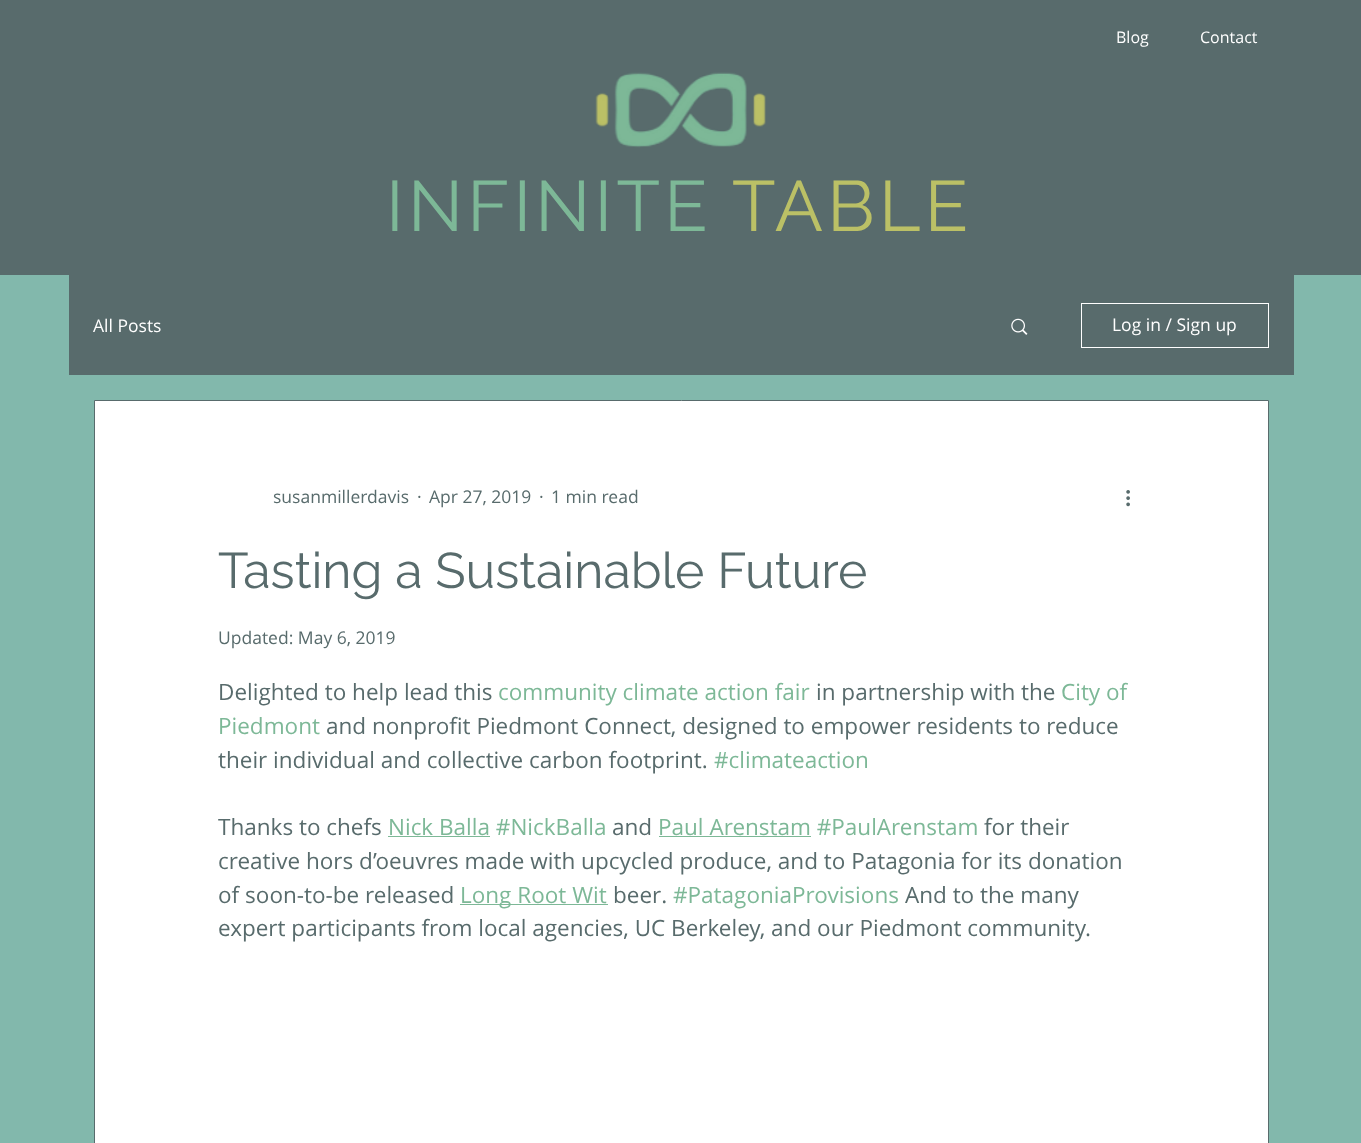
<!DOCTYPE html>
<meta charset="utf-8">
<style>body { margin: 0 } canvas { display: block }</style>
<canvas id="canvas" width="1361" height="1143"></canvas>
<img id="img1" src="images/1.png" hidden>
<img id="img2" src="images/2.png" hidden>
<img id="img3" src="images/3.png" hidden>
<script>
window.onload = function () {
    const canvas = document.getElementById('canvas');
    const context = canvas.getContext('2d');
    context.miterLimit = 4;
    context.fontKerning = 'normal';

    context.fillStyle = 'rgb(130, 184, 172)';
    context.fillRect(0, 0, 1361, 1143);
    context.fillStyle = 'rgb(88, 107, 108)';
    context.fillRect(0, 0, 1361, 275);
    context.drawImage(document.getElementById('img1'), 595, 72, 171, 76);
    context.fillRect(69, 275, 1225, 100);
    context.drawImage(document.getElementById('img2'), 1011, 318, 17, 17);
    context.strokeStyle = 'rgb(255, 255, 255)';
    context.strokeRect(1081.5, 303.5, 187, 44);
    context.fillStyle = 'rgb(255, 255, 255)';
    context.beginPath();
    context.rect(94.5, 400.5, 1174, 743);
    context.fill();
    context.strokeStyle = 'rgb(88, 107, 108)';
    context.stroke();
    context.drawImage(document.getElementById('img3'), 1126, 490, 4, 17);
    context.fillStyle = 'rgb(125, 184, 151)';
    context.fillRect(388, 836, 102, 1);
    context.fillRect(659, 836, 152, 1);
    context.fillRect(460, 904, 148, 1);
    context.font = '16px Open Sans';
    context.fillStyle = 'rgb(255, 255, 255)';
    context.fillText('Blog', 1116, 43);
    context.fillText('Contact', 1200, 43);
    context.letterSpacing = '4.25px';
    context.font = '71.25px Raleway';
    context.fillStyle = 'rgb(125, 184, 151)';
    context.fillText('INFINITE', 386, 231);
    context.fillStyle = 'rgb(187, 192, 102)';
    context.fillText('TABLE', 732, 231);
    context.letterSpacing = '0px';
    context.font = '17.5px Open Sans';
    context.fillStyle = 'rgb(255, 255, 255)';
    context.fillText('All Posts', 93, 332);
    context.fillText('Log in / Sign up', 1112, 331);
    context.fillStyle = 'rgb(88, 107, 108)';
    context.fillText('susanmillerdavis', 273, 503);
    context.fillText('·', 417, 503);
    context.fillText('Apr 27, 2019', 429, 503);
    context.fillText('·', 539, 503);
    context.fillText('1 min read', 551, 503);
    context.font = '50px Raleway';
    context.fillText('Tasting a Sustainable Future', 218, 588);
    context.font = '17.5px Open Sans';
    context.fillText('Updated: May 6, 2019', 218, 644);
    context.font = '22.5px Open Sans';
    context.fillText('Delighted to help lead this', 218, 700);
    context.fillStyle = 'rgb(125, 184, 151)';
    context.fillText('community climate action fair', 498, 700);
    context.fillStyle = 'rgb(88, 107, 108)';
    context.fillText('in partnership with the', 816, 700);
    context.fillStyle = 'rgb(125, 184, 151)';
    context.fillText('City of', 1061, 700);
    context.fillText('Piedmont', 218, 734);
    context.fillStyle = 'rgb(88, 107, 108)';
    context.fillText('and nonprofit Piedmont Connect, designed to empower residents to reduce', 326, 734);
    context.fillText('their individual and collective carbon footprint.', 218, 768);
    context.fillStyle = 'rgb(125, 184, 151)';
    context.fillText('#climateaction', 714, 768);
    context.fillStyle = 'rgb(88, 107, 108)';
    context.fillText('Thanks to chefs', 218, 835);
    context.fillStyle = 'rgb(125, 184, 151)';
    context.fillText('Nick Balla #NickBalla', 388, 835);
    context.fillStyle = 'rgb(88, 107, 108)';
    context.fillText('and', 612, 835);
    context.fillStyle = 'rgb(125, 184, 151)';
    context.fillText('Paul Arenstam #PaulArenstam', 658, 835);
    context.fillStyle = 'rgb(88, 107, 108)';
    context.fillText('for their', 984, 835);
    context.fillText('creative hors d’oeuvres made with upcycled produce, and to Patagonia for its donation', 218, 869);
    context.fillText('of soon-to-be released', 218, 903);
    context.fillStyle = 'rgb(125, 184, 151)';
    context.fillText('Long Root Wit', 460, 903);
    context.fillStyle = 'rgb(88, 107, 108)';
    context.fillText('beer.', 613, 903);
    context.fillStyle = 'rgb(125, 184, 151)';
    context.fillText('#PatagoniaProvisions', 673, 903);
    context.fillStyle = 'rgb(88, 107, 108)';
    context.fillText('And to the many', 905, 903);
    context.fillText('expert participants from local agencies, UC Berkeley, and our Piedmont community.', 218, 936);
};
</script>
